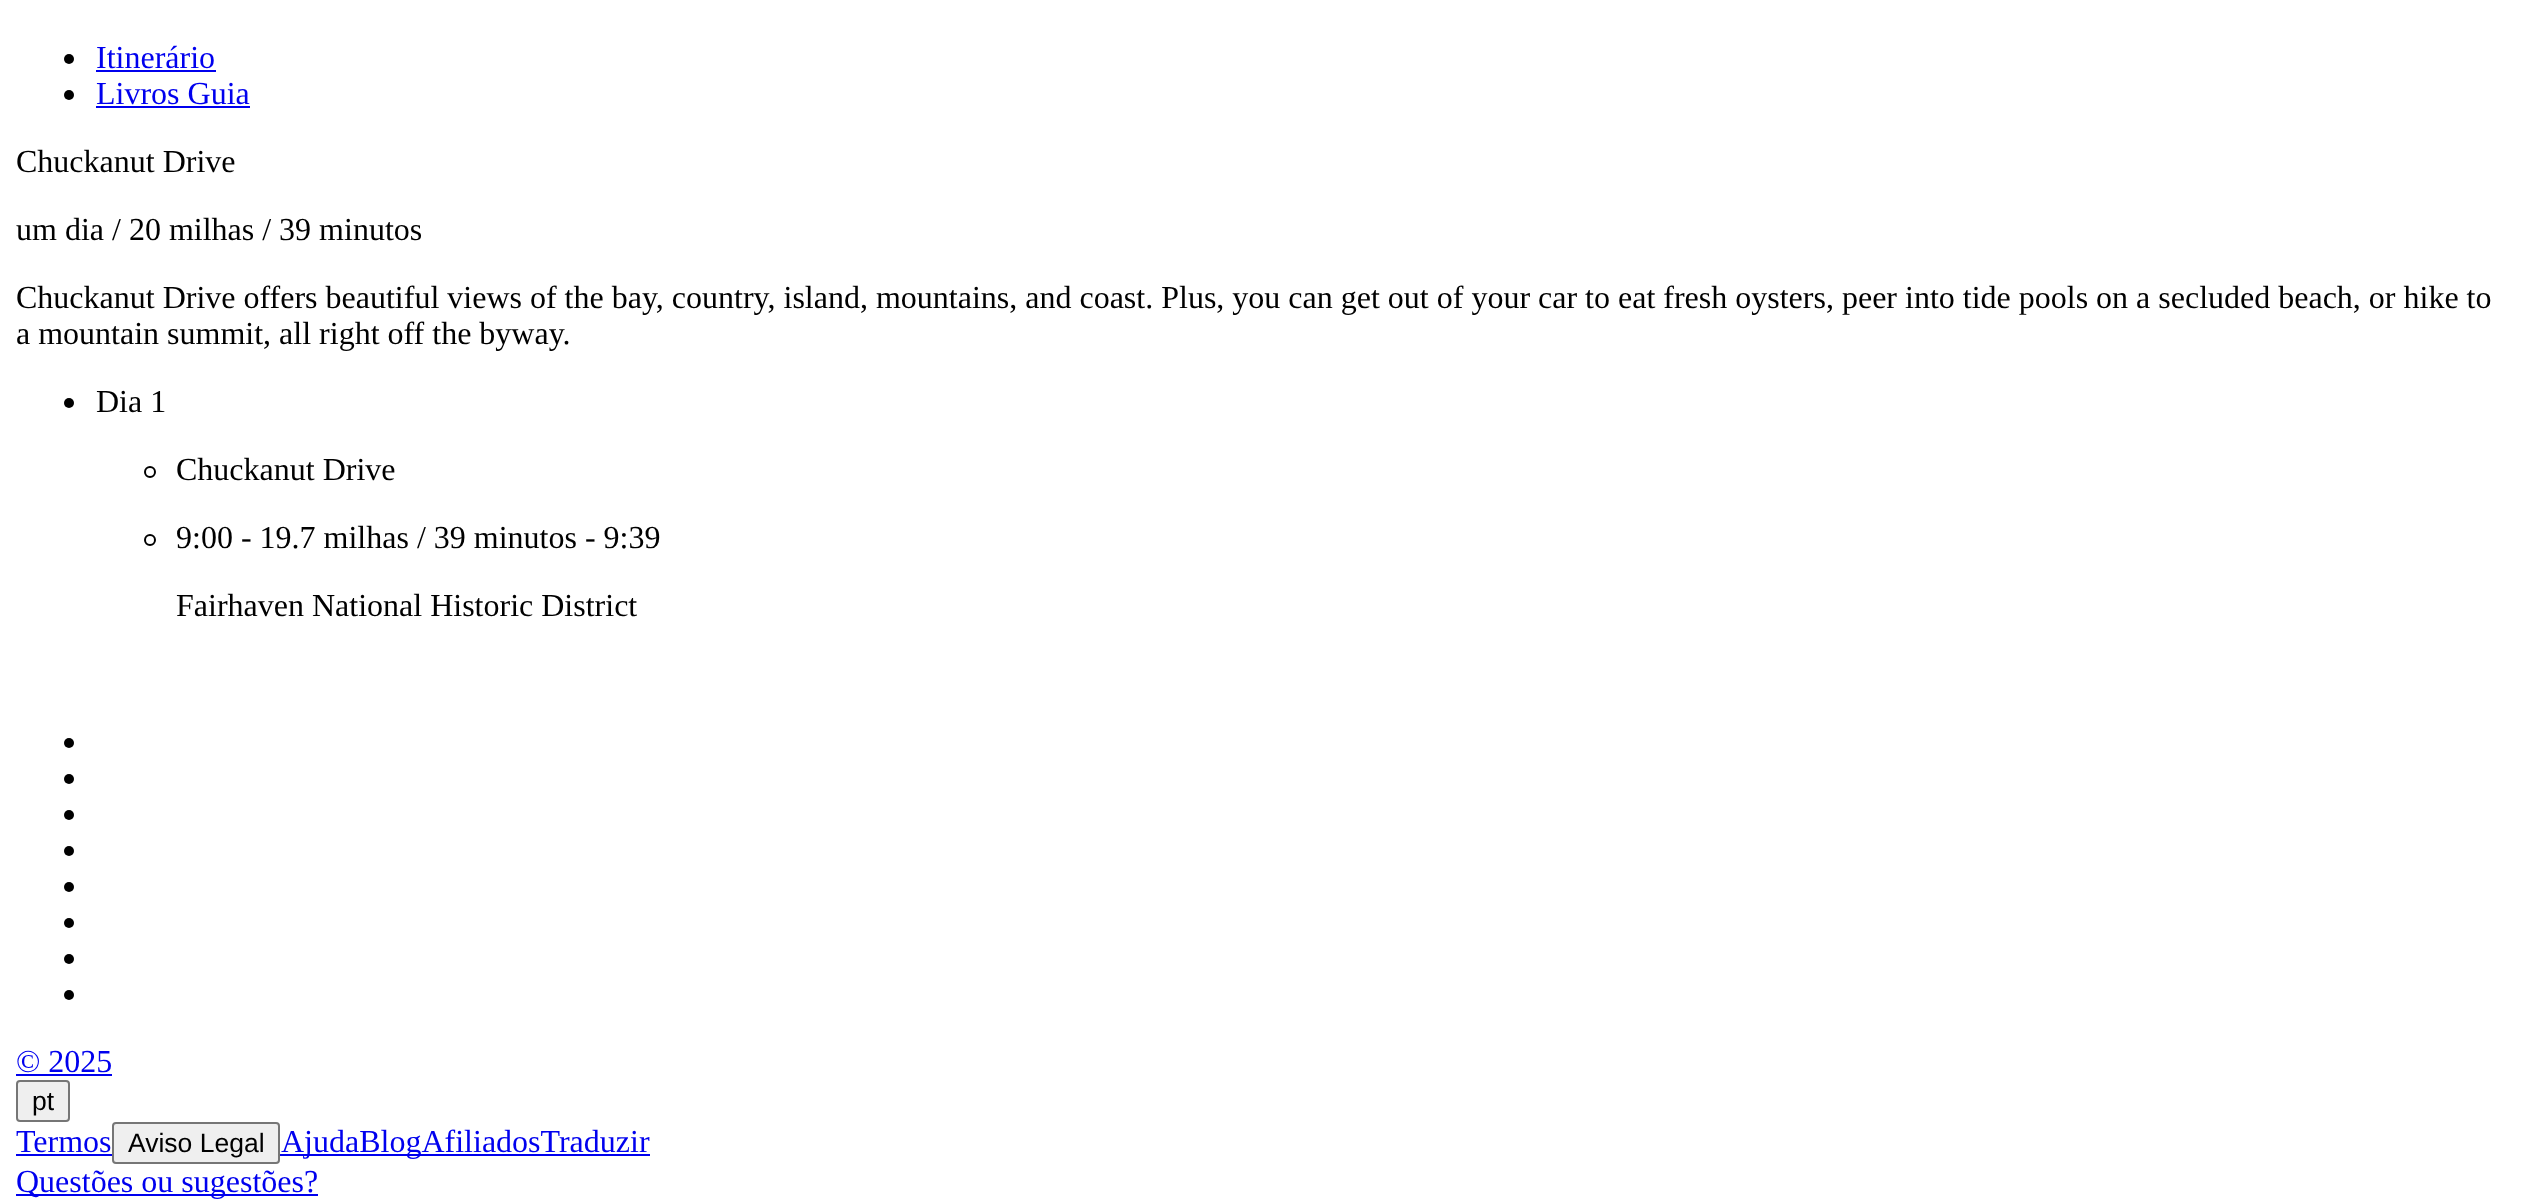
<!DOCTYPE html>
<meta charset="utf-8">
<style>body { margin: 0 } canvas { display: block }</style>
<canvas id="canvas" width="2523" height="1203"></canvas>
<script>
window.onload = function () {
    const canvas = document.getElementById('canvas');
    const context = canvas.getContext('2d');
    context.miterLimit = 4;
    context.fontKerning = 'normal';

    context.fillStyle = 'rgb(255, 255, 255)';
    context.fillRect(0, 0, 2523, 1203);
    context.fillStyle = 'rgb(0, 0, 0)';
    context.beginPath();
    context.arc(69, 59, 5, 0, 2 * Math.PI);
    context.fill();
    context.fillStyle = 'rgb(0, 0, 238)';
    context.fillRect(96, 70, 120, 2);
    context.fillStyle = 'rgb(0, 0, 0)';
    context.beginPath();
    context.arc(69, 95, 5, 0, 2 * Math.PI);
    context.fill();
    context.fillStyle = 'rgb(0, 0, 238)';
    context.fillRect(96, 106, 154, 2);
    context.fillStyle = 'rgb(0, 0, 0)';
    context.beginPath();
    context.arc(69, 403, 5, 0, 2 * Math.PI);
    context.fill();
    context.beginPath();
    context.arc(150, 472, 5, 0, 2 * Math.PI);
    context.strokeStyle = 'rgb(0, 0, 0)';
    context.lineWidth = 2;
    context.stroke();
    context.beginPath();
    context.arc(150, 540, 5, 0, 2 * Math.PI);
    context.stroke();
    context.beginPath();
    context.arc(69, 743, 5, 0, 2 * Math.PI);
    context.fill();
    context.beginPath();
    context.arc(69, 779, 5, 0, 2 * Math.PI);
    context.fill();
    context.beginPath();
    context.arc(69, 815, 5, 0, 2 * Math.PI);
    context.fill();
    context.beginPath();
    context.arc(69, 851, 5, 0, 2 * Math.PI);
    context.fill();
    context.beginPath();
    context.arc(69, 887, 5, 0, 2 * Math.PI);
    context.fill();
    context.beginPath();
    context.arc(69, 923, 5, 0, 2 * Math.PI);
    context.fill();
    context.beginPath();
    context.arc(69, 959, 5, 0, 2 * Math.PI);
    context.fill();
    context.beginPath();
    context.arc(69, 995, 5, 0, 2 * Math.PI);
    context.fill();
    context.fillStyle = 'rgb(0, 0, 238)';
    context.fillRect(16, 1074, 96, 2);
    context.fillStyle = 'rgb(239, 239, 239)';
    context.beginPath();
    context.roundRect(17, 1081, 52, 40, 3);
    context.fill();
    context.strokeStyle = 'rgb(118, 118, 118)';
    context.stroke();
    context.fillStyle = 'rgb(0, 0, 238)';
    context.fillRect(16, 1154, 96, 2);
    context.fillStyle = 'rgb(239, 239, 239)';
    context.beginPath();
    context.roundRect(113, 1123, 166, 40, 3);
    context.fill();
    context.stroke();
    context.fillStyle = 'rgb(0, 0, 238)';
    context.fillRect(280, 1154, 370, 2);
    context.fillRect(16, 1194, 302, 2);
    context.font = '32px Liberation Serif';
    context.fillText('Itinerário', 96, 68);
    context.fillText('Livros Guia', 96, 104);
    context.fillStyle = 'rgb(0, 0, 0)';
    context.fillText('Chuckanut Drive', 16, 172);
    context.fillText('um dia / 20 milhas / 39 minutos', 16, 240);
    context.fillText('Chuckanut Drive offers beautiful views of the bay, country, island, mountains, and coast. Plus, you can get out of your car to eat fresh oysters, peer into tide pools on a secluded beach, or hike to', 16, 308);
    context.fillText('a mountain summit, all right off the byway.', 16, 344);
    context.fillText('Dia 1', 96, 412);
    context.fillText('Chuckanut Drive', 176, 480);
    context.fillText('9:00 - 19.7 milhas / 39 minutos - 9:39', 176, 548);
    context.fillText('Fairhaven National Historic District', 176, 616);
    context.fillStyle = 'rgb(0, 0, 238)';
    context.fillText('© 2025', 16, 1072);
    context.font = '26.5px Liberation Sans';
    context.fillStyle = 'rgb(0, 0, 0)';
    context.fillText('pt', 32, 1110);
    context.font = '32px Liberation Serif';
    context.fillStyle = 'rgb(0, 0, 238)';
    context.fillText('Termos', 16, 1152);
    context.font = '26.5px Liberation Sans';
    context.fillStyle = 'rgb(0, 0, 0)';
    context.fillText('Aviso Legal', 128, 1152);
    context.font = '32px Liberation Serif';
    context.fillStyle = 'rgb(0, 0, 238)';
    context.fillText('AjudaBlogAfiliadosTraduzir', 281, 1152);
    context.fillText('Questões ou sugestões?', 16, 1192);
};
</script>
